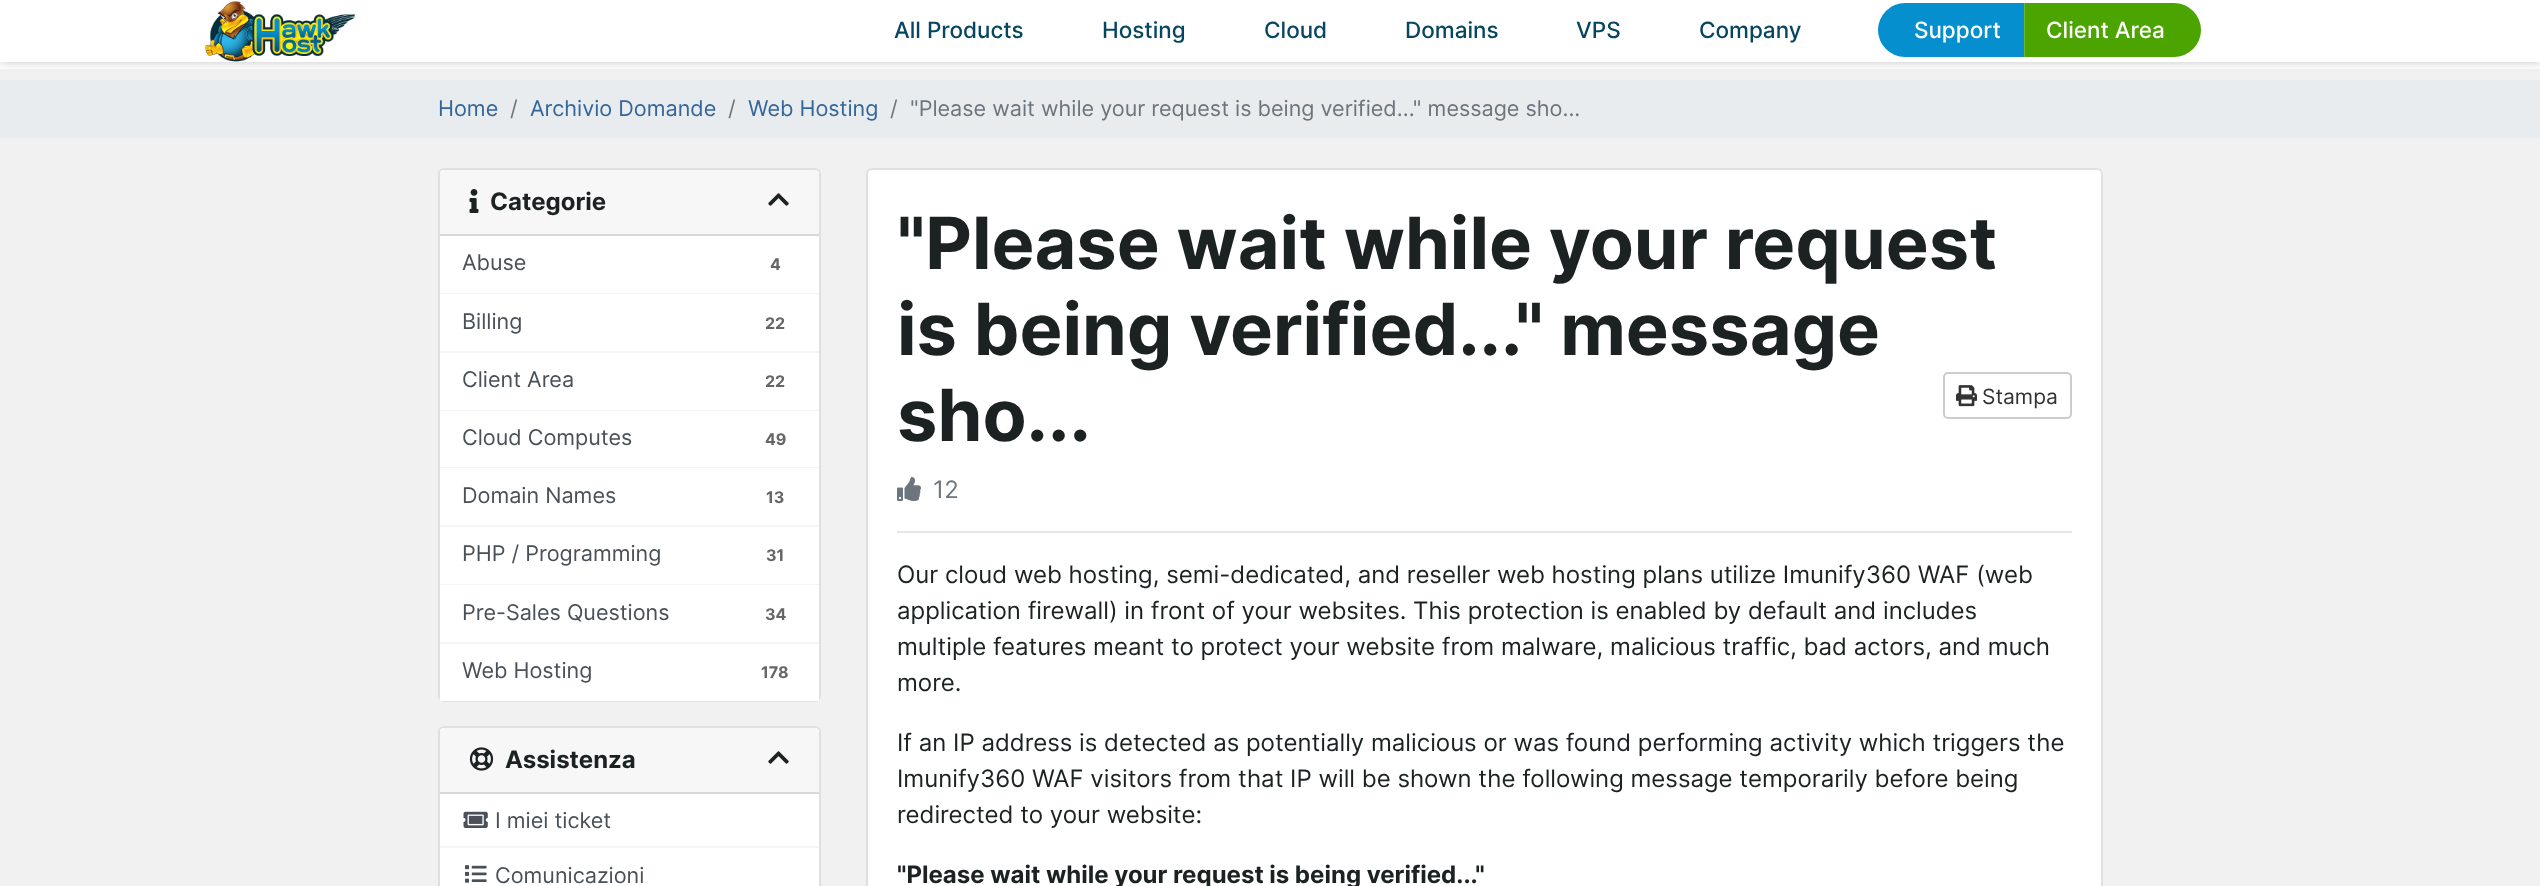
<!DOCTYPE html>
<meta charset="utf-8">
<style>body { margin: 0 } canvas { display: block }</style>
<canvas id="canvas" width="2540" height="886"></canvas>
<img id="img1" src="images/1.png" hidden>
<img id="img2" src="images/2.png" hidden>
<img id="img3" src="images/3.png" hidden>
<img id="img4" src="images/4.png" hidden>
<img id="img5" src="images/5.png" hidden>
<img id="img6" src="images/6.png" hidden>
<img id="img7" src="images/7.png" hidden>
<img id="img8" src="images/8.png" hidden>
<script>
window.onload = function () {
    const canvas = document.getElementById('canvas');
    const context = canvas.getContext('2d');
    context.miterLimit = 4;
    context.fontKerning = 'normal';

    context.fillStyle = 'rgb(241, 241, 241)';
    context.fillRect(0, 0, 2540, 886);
    context.fillStyle = 'rgb(255, 255, 255)';
    context.fillRect(0, 62, 2540, 7);
    context.fillStyle = 'rgba(0, 0, 0, 0.2)';
    context.filter = 'blur(4px)';
    context.beginPath();
    context.rect(0, 2, 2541, 61);
    context.fill();
    context.filter = 'none';
    context.fillStyle = 'rgb(255, 255, 255)';
    context.fillRect(0, 0, 2540, 62);
    context.drawImage(document.getElementById('img1'), 205, 1, 151, 61);
    context.fillStyle = 'rgb(6, 143, 206)';
    context.beginPath();
    context.roundRect(1878, 3, 146, 54, [27, 0, 0, 27]);
    context.fill();
    context.fillStyle = 'rgb(75, 164, 0)';
    context.beginPath();
    context.roundRect(2024, 3, 177, 54, [0, 27, 27, 0]);
    context.fill();
    context.fillStyle = 'rgb(111, 182, 51)';
    context.fillRect(2024, 3, 1, 54);
    context.fillStyle = 'rgb(233, 236, 239)';
    context.fillRect(0, 80, 2540, 58);
    context.fillStyle = 'rgb(255, 255, 255)';
    context.beginPath();
    context.roundRect(438, 168, 383, 534, 6);
    context.fill();
    context.beginPath();
    context.roundRect(439, 169, 381, 532, 5);
    context.strokeStyle = 'rgba(0, 0, 0, 0.12)';
    context.lineWidth = 2;
    context.stroke();
    context.fillStyle = 'rgb(247, 247, 247)';
    context.beginPath();
    context.roundRect(440, 170, 379, 66, [5, 5, 0, 0]);
    context.fill();
    context.fillStyle = 'rgb(216, 216, 216)';
    context.fillRect(440, 234, 379, 2);
    context.drawImage(document.getElementById('img2'), 469, 189, 10, 24);
    context.drawImage(document.getElementById('img3'), 768, 193, 21, 13);
    context.fillStyle = 'rgb(245, 245, 245)';
    context.fillRect(440, 293, 379, 1);
    context.fillRect(440, 351, 379, 2);
    context.fillRect(440, 410, 379, 1);
    context.fillRect(440, 467, 379, 1);
    context.fillRect(440, 525, 379, 2);
    context.fillRect(440, 584, 379, 1);
    context.fillRect(440, 642, 379, 2);
    context.fillStyle = 'rgb(255, 255, 255)';
    context.fillRect(440, 697, 379, 4);
    context.beginPath();
    context.roundRect(438, 726, 383, 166, 6);
    context.fill();
    context.beginPath();
    context.roundRect(439, 727, 381, 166, 5);
    context.stroke();
    context.fillStyle = 'rgb(247, 247, 247)';
    context.beginPath();
    context.roundRect(440, 728, 379, 66, [5, 5, 0, 0]);
    context.fill();
    context.fillStyle = 'rgb(216, 216, 216)';
    context.fillRect(440, 792, 379, 2);
    context.drawImage(document.getElementById('img4'), 469, 747, 25, 24);
    context.drawImage(document.getElementById('img3'), 768, 751, 21, 13);
    context.fillStyle = 'rgb(245, 245, 245)';
    context.fillRect(440, 846, 379, 2);
    context.drawImage(document.getElementById('img5'), 463, 811, 25, 17);
    context.drawImage(document.getElementById('img6'), 465, 865, 22, 18);
    context.fillStyle = 'rgb(255, 255, 255)';
    context.beginPath();
    context.roundRect(866, 168, 1237, 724, 6);
    context.fill();
    context.beginPath();
    context.roundRect(867, 169, 1235, 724, 5);
    context.stroke();
    context.beginPath();
    context.roundRect(1944, 373, 127, 45, 4);
    context.strokeStyle = 'rgb(204, 204, 204)';
    context.stroke();
    context.drawImage(document.getElementById('img7'), 1956, 385, 21, 22);
    context.drawImage(document.getElementById('img8'), 897, 477, 24, 24);
    context.fillStyle = 'rgb(230, 230, 230)';
    context.fillRect(897, 531, 1175, 2);
    context.font = '500 22.5px Inter';
    context.fillStyle = 'rgb(6, 70, 96)';
    context.fillText('All Products', 894, 38);
    context.fillText('Hosting', 1102, 38);
    context.fillText('Cloud', 1264, 38);
    context.fillText('Domains', 1405, 38);
    context.fillText('VPS', 1576, 38);
    context.fillText('Company', 1699, 38);
    context.fillStyle = 'rgb(255, 255, 255)';
    context.fillText('Support', 1914, 38);
    context.fillText('Client Area', 2046, 38);
    context.font = '21.6px Inter';
    context.fillStyle = 'rgb(51, 102, 153)';
    context.fillText('Home', 438, 116);
    context.fillStyle = 'rgb(108, 117, 125)';
    context.fillText('/', 510, 116);
    context.fillStyle = 'rgb(51, 102, 153)';
    context.fillText('Archivio Domande', 530, 116);
    context.fillStyle = 'rgb(108, 117, 125)';
    context.fillText('/', 728, 116);
    context.fillStyle = 'rgb(51, 102, 153)';
    context.fillText('Web Hosting', 748, 116);
    context.fillStyle = 'rgb(108, 117, 125)';
    context.fillText('/', 890, 116);
    context.fillText('"Please wait while your request is being verified..." message sho...', 910, 116);
    context.font = 'bold 24px Inter';
    context.fillStyle = 'rgb(28, 33, 34)';
    context.fillText('Categorie', 490, 210);
    context.font = '21.6px Inter';
    context.fillStyle = 'rgb(73, 80, 87)';
    context.fillText('Abuse', 462, 270);
    context.font = 'bold 16px Inter';
    context.fillStyle = 'rgb(102, 102, 102)';
    context.fillText('4', 770, 270);
    context.font = '21.6px Inter';
    context.fillStyle = 'rgb(73, 80, 87)';
    context.fillText('Billing', 462, 329);
    context.font = 'bold 16px Inter';
    context.fillStyle = 'rgb(102, 102, 102)';
    context.fillText('22', 765, 329);
    context.font = '21.6px Inter';
    context.fillStyle = 'rgb(73, 80, 87)';
    context.fillText('Client Area', 462, 387);
    context.font = 'bold 16px Inter';
    context.fillStyle = 'rgb(102, 102, 102)';
    context.fillText('22', 765, 387);
    context.font = '21.6px Inter';
    context.fillStyle = 'rgb(73, 80, 87)';
    context.fillText('Cloud Computes', 462, 445);
    context.font = 'bold 16px Inter';
    context.fillStyle = 'rgb(102, 102, 102)';
    context.fillText('49', 765, 445);
    context.font = '21.6px Inter';
    context.fillStyle = 'rgb(73, 80, 87)';
    context.fillText('Domain Names', 462, 503);
    context.font = 'bold 16px Inter';
    context.fillStyle = 'rgb(102, 102, 102)';
    context.fillText('13', 766, 503);
    context.font = '21.6px Inter';
    context.fillStyle = 'rgb(73, 80, 87)';
    context.fillText('PHP / Programming', 462, 561);
    context.font = 'bold 16px Inter';
    context.fillStyle = 'rgb(102, 102, 102)';
    context.fillText('31', 766, 561);
    context.font = '21.6px Inter';
    context.fillStyle = 'rgb(73, 80, 87)';
    context.fillText('Pre-Sales Questions', 462, 620);
    context.font = 'bold 16px Inter';
    context.fillStyle = 'rgb(102, 102, 102)';
    context.fillText('34', 765, 620);
    context.font = '21.6px Inter';
    context.fillStyle = 'rgb(73, 80, 87)';
    context.fillText('Web Hosting', 462, 678);
    context.font = 'bold 16px Inter';
    context.fillStyle = 'rgb(102, 102, 102)';
    context.fillText('178', 761, 678);
    context.font = 'bold 24px Inter';
    context.fillStyle = 'rgb(28, 33, 34)';
    context.fillText('Assistenza', 505, 768);
    context.font = '21.6px Inter';
    context.fillStyle = 'rgb(73, 80, 87)';
    context.fillText('I miei ticket', 495, 828);
    context.fillText('Comunicazioni', 495, 883);
    context.font = 'bold 72px Inter';
    context.fillStyle = 'rgb(28, 33, 34)';
    context.fillText('"Please wait while your request', 897, 269);
    context.fillText('is being verified..." message', 897, 355);
    context.fillText('sho...', 897, 441);
    context.font = '21px Inter';
    context.fillStyle = 'rgb(51, 51, 51)';
    context.fillText('Stampa', 1982, 404);
    context.font = '24px Inter';
    context.fillStyle = 'rgb(108, 117, 125)';
    context.fillText('12', 933, 498);
    context.fillStyle = 'rgb(28, 33, 34)';
    context.fillText('Our cloud web hosting, semi-dedicated, and reseller web hosting plans utilize Imunify360 WAF (web', 897, 583);
    context.fillText('application firewall) in front of your websites. This protection is enabled by default and includes', 897, 619);
    context.fillText('multiple features meant to protect your website from malware, malicious traffic, bad actors, and much', 897, 655);
    context.fillText('more.', 897, 691);
    context.fillText('If an IP address is detected as potentially malicious or was found performing activity which triggers the', 897, 751);
    context.fillText('Imunify360 WAF visitors from that IP will be shown the following message temporarily before being', 897, 787);
    context.fillText('redirected to your website:', 897, 823);
    context.font = 'bold 24px Inter';
    context.fillText('"Please wait while your request is being verified..."', 897, 883);
};
</script>
